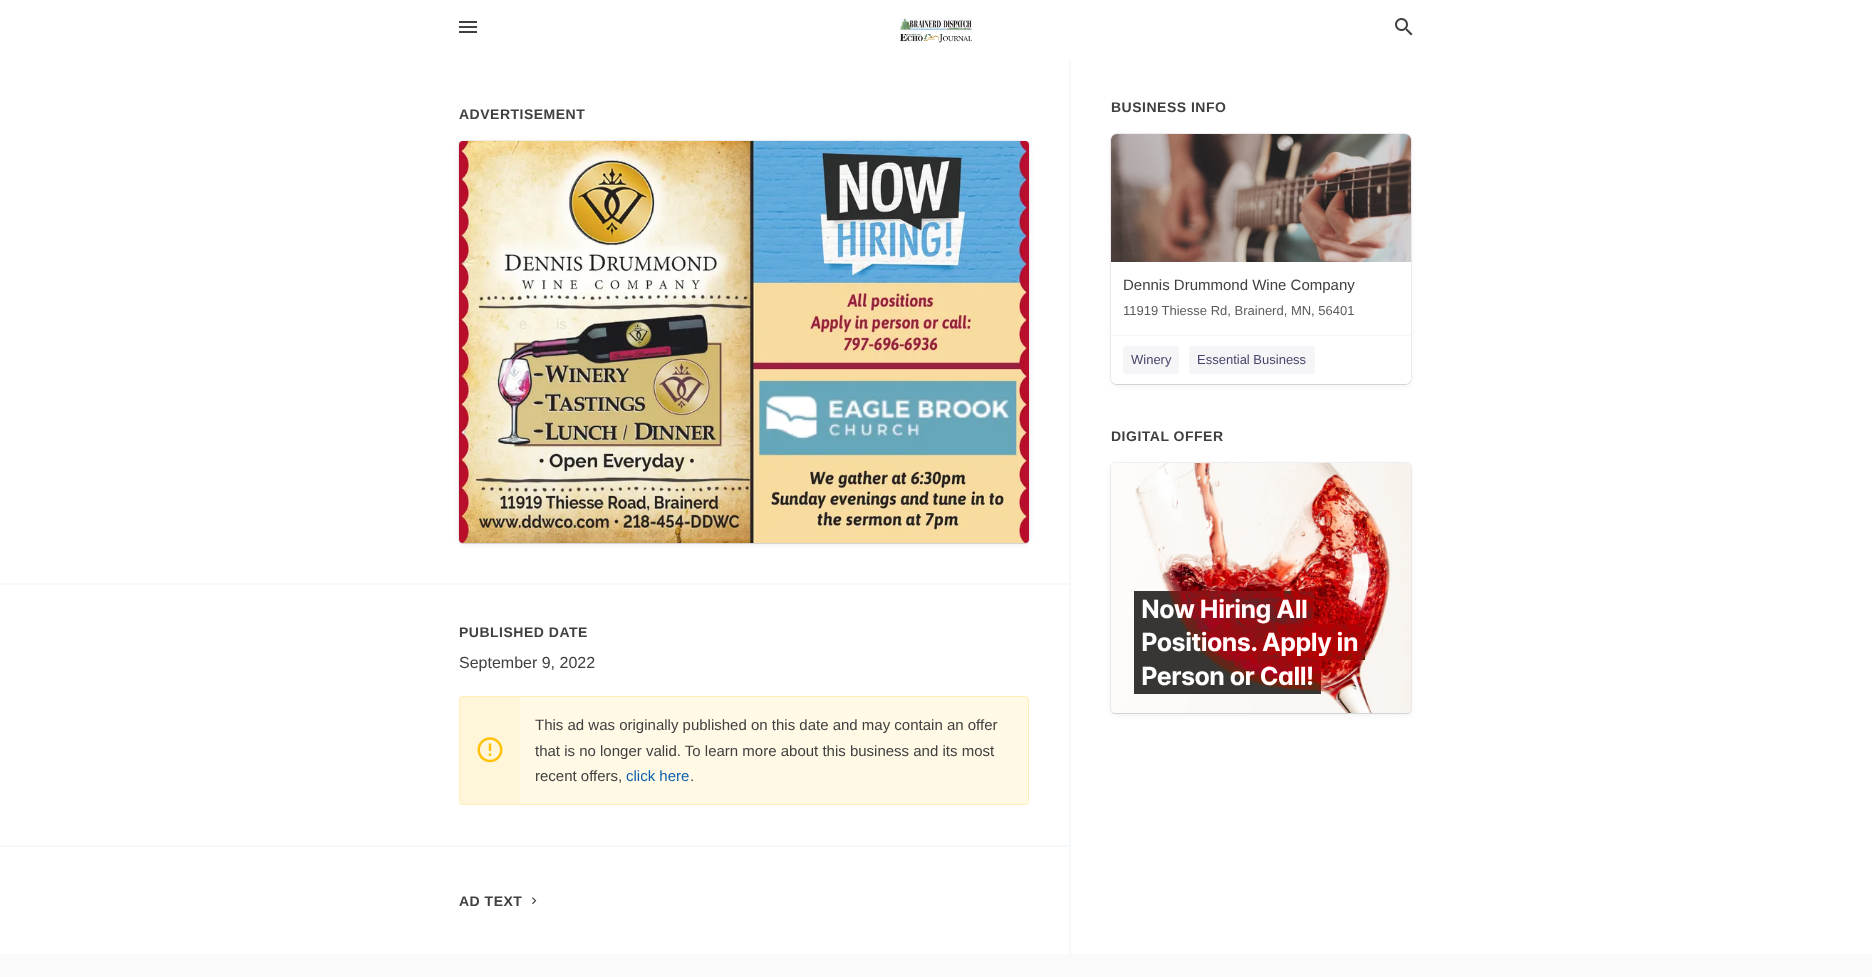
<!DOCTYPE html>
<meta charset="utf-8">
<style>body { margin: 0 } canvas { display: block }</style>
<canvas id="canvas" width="1872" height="977"></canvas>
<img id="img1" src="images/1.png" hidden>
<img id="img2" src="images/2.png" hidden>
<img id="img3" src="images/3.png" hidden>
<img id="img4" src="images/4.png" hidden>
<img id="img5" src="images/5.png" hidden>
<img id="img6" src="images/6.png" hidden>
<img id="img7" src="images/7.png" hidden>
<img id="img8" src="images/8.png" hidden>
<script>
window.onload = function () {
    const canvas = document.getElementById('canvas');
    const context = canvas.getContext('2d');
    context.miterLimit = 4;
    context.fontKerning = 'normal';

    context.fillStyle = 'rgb(250, 250, 250)';
    context.fillRect(0, 0, 1872, 977);
    context.fillStyle = 'rgb(255, 255, 255)';
    context.fillRect(0, 0, 1872, 954);
    context.fillStyle = 'rgb(246, 249, 252)';
    context.fillRect(1069, 60, 2, 894);
    context.fillRect(0, 583, 1069, 2);
    context.fillStyle = 'rgba(60, 66, 87, 0.08)';
    context.filter = 'blur(2.5px)';
    context.beginPath();
    context.roundRect(459, 143, 570, 402, 4);
    context.fill();
    context.filter = 'none';
    context.beginPath();
    context.roundRect(458.5, 140.5, 571, 403, 4.5);
    context.strokeStyle = 'rgba(60, 66, 87, 0.08)';
    context.stroke();
    context.fillStyle = 'rgba(0, 0, 0, 0.08)';
    context.filter = 'blur(0.5px)';
    context.beginPath();
    context.roundRect(459, 142, 570, 402, 4);
    context.fill();
    context.filter = 'none';
    context.drawImage(document.getElementById('img1'), 459, 141, 570, 402);
    context.fillStyle = 'rgb(246, 249, 252)';
    context.fillRect(0, 845, 1069, 2);
    context.fillStyle = 'rgb(255, 249, 230)';
    context.beginPath();
    context.roundRect(459, 696, 570, 109, 4);
    context.fill();
    context.beginPath();
    context.roundRect(459.5, 696.5, 569, 108, 3.5);
    context.strokeStyle = 'rgba(255, 193, 7, 0.2)';
    context.stroke();
    context.drawImage(document.getElementById('img2'), 477, 737, 26, 26);
    context.fillStyle = 'rgba(255, 193, 7, 0.05)';
    context.fillRect(460, 697, 60, 107);
    context.drawImage(document.getElementById('img3'), 532, 897, 5, 8);
    context.fillStyle = 'rgba(60, 66, 87, 0.08)';
    context.filter = 'blur(2.5px)';
    context.beginPath();
    context.roundRect(1111, 136, 300, 250, 6);
    context.fill();
    context.filter = 'none';
    context.beginPath();
    context.roundRect(1110.5, 133.5, 301, 251, 6.5);
    context.strokeStyle = 'rgba(60, 66, 87, 0.08)';
    context.stroke();
    context.fillStyle = 'rgba(0, 0, 0, 0.08)';
    context.filter = 'blur(0.5px)';
    context.beginPath();
    context.roundRect(1111, 135, 300, 250, 6);
    context.fill();
    context.filter = 'none';
    context.fillStyle = 'rgb(255, 255, 255)';
    context.beginPath();
    context.roundRect(1111, 134, 300, 250, 6);
    context.fill();
    context.drawImage(document.getElementById('img4'), 1111, 134, 300, 128);
    context.beginPath();
    context.roundRect(1111, 335, 300, 49, [0, 0, 6, 6]);
    context.fill();
    context.fillStyle = 'rgb(241, 247, 251)';
    context.fillRect(1111, 335, 300, 1);
    context.fillStyle = 'rgb(245, 245, 247)';
    context.beginPath();
    context.roundRect(1123, 346, 56, 28, 2);
    context.fill();
    context.beginPath();
    context.roundRect(1189, 346, 126, 28, 2);
    context.fill();
    context.fillStyle = 'rgba(60, 66, 87, 0.08)';
    context.filter = 'blur(2.5px)';
    context.beginPath();
    context.roundRect(1111, 465, 300, 250, 4);
    context.fill();
    context.filter = 'none';
    context.beginPath();
    context.roundRect(1110.5, 462.5, 301, 251, 4.5);
    context.stroke();
    context.fillStyle = 'rgba(0, 0, 0, 0.08)';
    context.filter = 'blur(0.5px)';
    context.beginPath();
    context.roundRect(1111, 464, 300, 250, 4);
    context.fill();
    context.filter = 'none';
    context.drawImage(document.getElementById('img5'), 1111, 463, 300, 250);
    context.drawImage(document.getElementById('img6'), 459, 21, 18, 12);
    context.drawImage(document.getElementById('img7'), 900, 18, 72, 25);
    context.drawImage(document.getElementById('img8'), 1395, 18, 18, 18);
    context.letterSpacing = '0.5px';
    context.font = 'bold 14px Liberation Sans';
    context.fillStyle = 'rgb(64, 64, 64)';
    context.fillText('ADVERTISEMENT', 459, 119);
    context.fillText('PUBLISHED DATE', 459, 637);
    context.letterSpacing = '0px';
    context.font = '16px Liberation Sans';
    context.fillText('September 9, 2022', 459, 668);
    context.font = '15px Liberation Sans';
    context.fillText('This ad was originally published on this date and may contain an offer', 535, 730);
    context.fillText('that is no longer valid. To learn more about this business and its most', 535, 756);
    context.fillText('recent offers,', 535, 781);
    context.fillStyle = 'rgb(13, 96, 171)';
    context.fillText('click here', 626, 781);
    context.fillStyle = 'rgb(64, 64, 64)';
    context.fillText('.', 690, 781);
    context.letterSpacing = '0.5px';
    context.font = 'bold 14px Liberation Sans';
    context.fillText('AD TEXT', 459, 906);
    context.fillText('BUSINESS INFO', 1111, 112);
    context.letterSpacing = '0px';
    context.font = '15px Liberation Sans';
    context.fillText('Dennis Drummond Wine Company', 1123, 290);
    context.font = '13px Liberation Sans';
    context.fillStyle = 'rgb(92, 92, 92)';
    context.fillText('11919 Thiesse Rd, Brainerd, MN, 56401', 1123, 315);
    context.fillStyle = 'rgb(70, 70, 108)';
    context.fillText('Winery', 1131, 364);
    context.fillText('Essential Business', 1197, 364);
    context.letterSpacing = '0.5px';
    context.font = 'bold 14px Liberation Sans';
    context.fillStyle = 'rgb(64, 64, 64)';
    context.fillText('DIGITAL OFFER', 1111, 441);
    context.letterSpacing = '0px';
    context.font = '15px Liberation Sans';
    context.fillStyle = 'rgb(232, 227, 206)';
    context.fillText('e', 519, 329);
    context.fillText('is', 556, 329);
};
</script>
